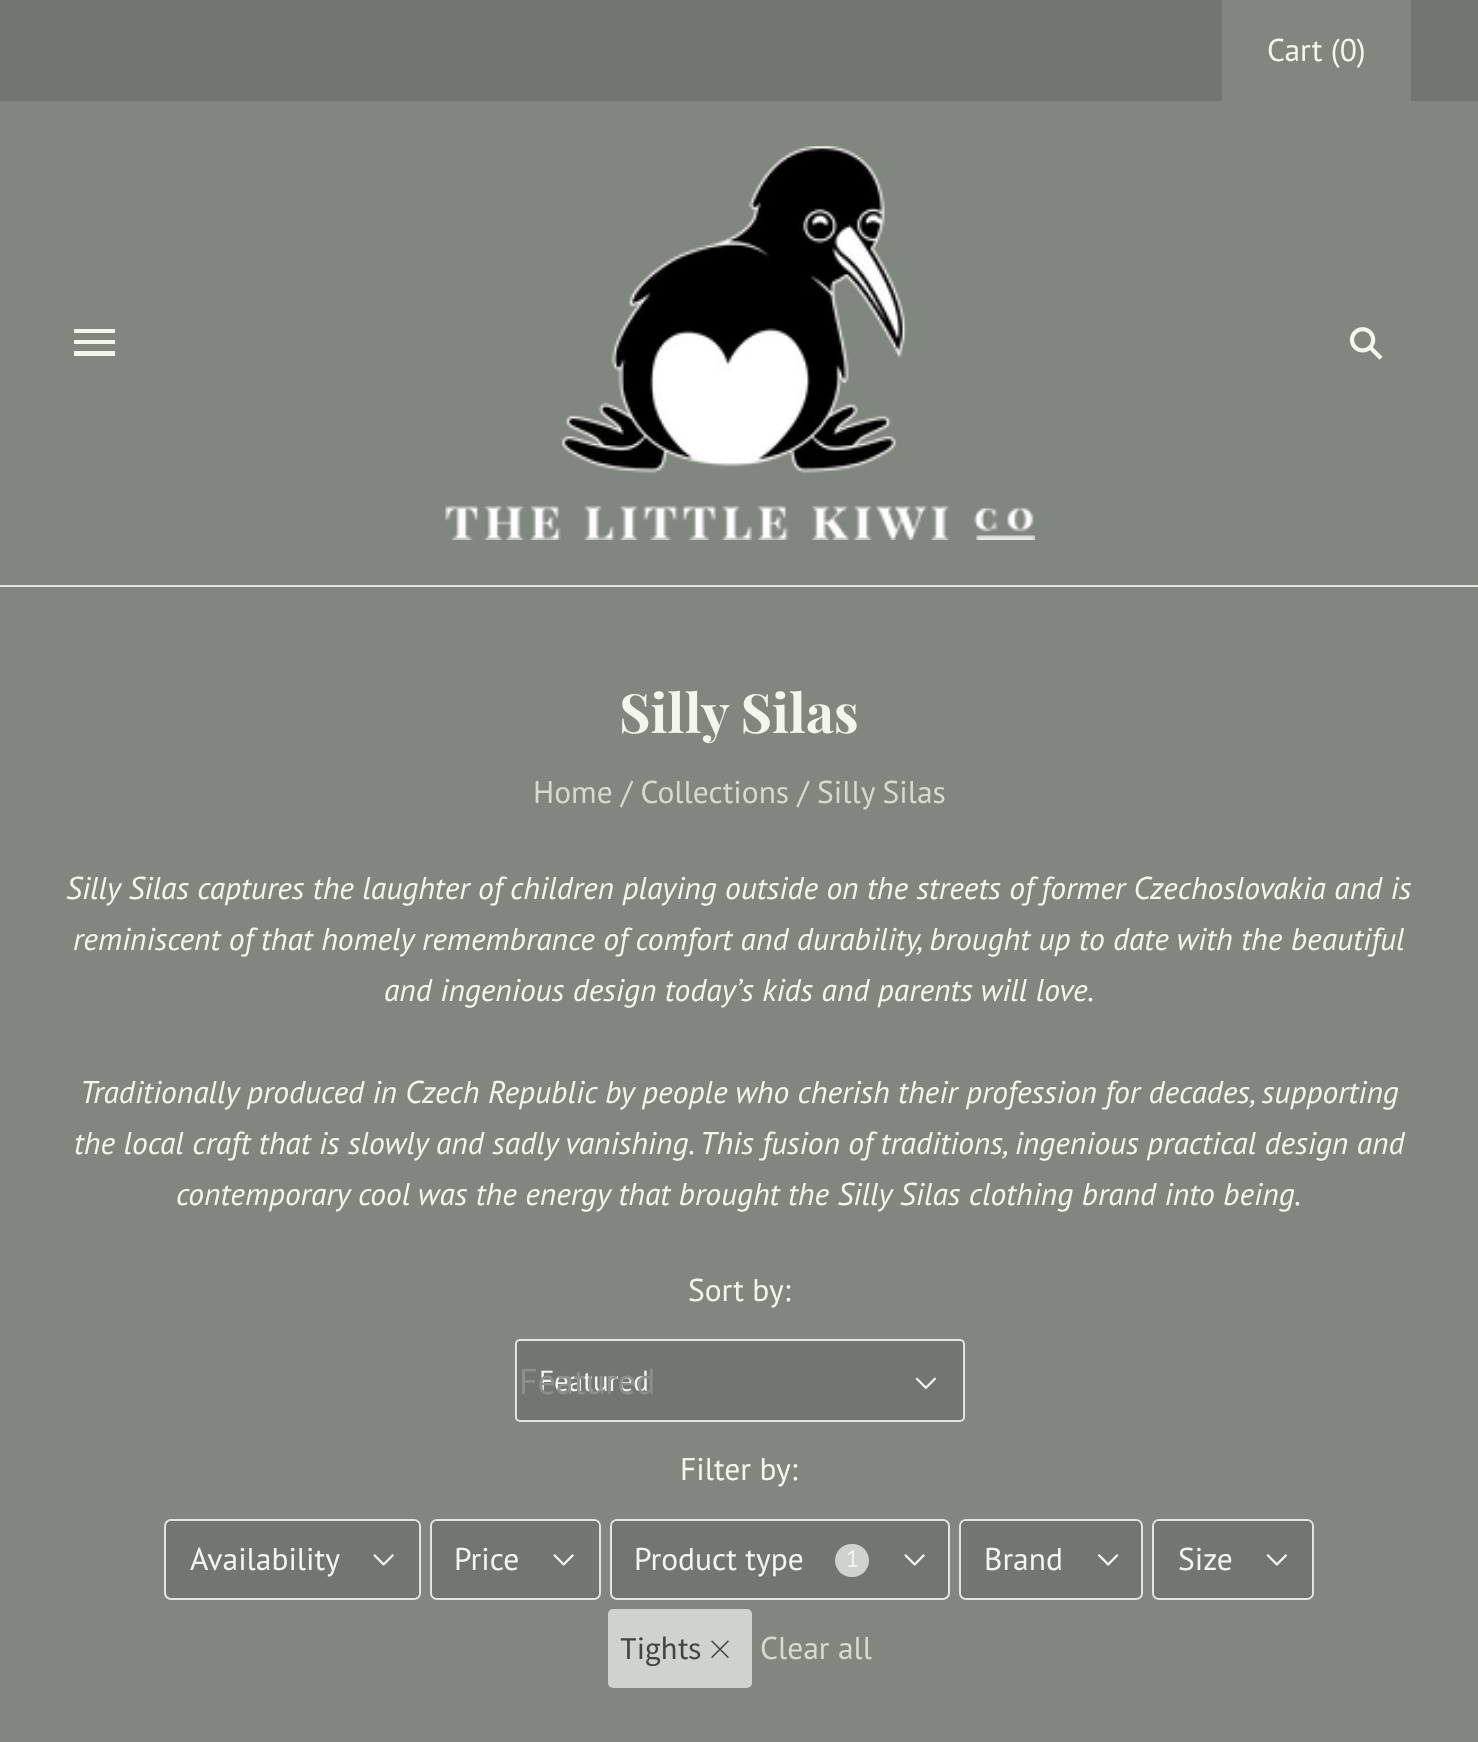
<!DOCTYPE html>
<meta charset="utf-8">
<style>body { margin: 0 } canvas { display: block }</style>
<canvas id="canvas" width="1478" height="1742"></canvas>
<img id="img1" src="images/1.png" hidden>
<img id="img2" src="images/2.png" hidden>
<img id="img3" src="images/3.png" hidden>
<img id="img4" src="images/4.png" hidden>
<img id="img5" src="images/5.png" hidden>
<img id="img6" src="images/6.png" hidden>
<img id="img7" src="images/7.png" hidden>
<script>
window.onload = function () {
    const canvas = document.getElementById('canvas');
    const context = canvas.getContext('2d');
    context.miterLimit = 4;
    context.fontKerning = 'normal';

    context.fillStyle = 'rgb(129, 134, 126)';
    context.fillRect(0, 0, 1478, 1742);
    context.fillStyle = 'rgb(228, 228, 228)';
    context.fillRect(0, 585, 1478, 2);
    context.fillStyle = 'rgb(114, 118, 112)';
    context.fillRect(0, 0, 1478, 101);
    context.fillStyle = 'rgb(129, 134, 126)';
    context.fillRect(1222, 0, 189, 101);
    context.save();
    context.beginPath();
    context.rect(74, 329, 41, 27);
    context.clip();
    context.fillStyle = 'rgb(241, 247, 237)';
    context.beginPath();
    context.moveTo(74, 328);
    context.lineTo(115, 328);
    context.lineTo(115, 333);
    context.lineTo(74, 333);
    context.closePath();
    context.moveTo(74, 340);
    context.lineTo(115, 340);
    context.lineTo(115, 344);
    context.lineTo(74, 344);
    context.closePath();
    context.moveTo(74, 351);
    context.lineTo(115, 351);
    context.lineTo(115, 356);
    context.lineTo(74, 356);
    context.closePath();
    context.fill('evenodd');
    context.restore();
    context.drawImage(document.getElementById('img1'), 445, 146, 590, 394);
    context.drawImage(document.getElementById('img2'), 1349, 327, 34, 33);
    context.fillStyle = 'rgb(114, 118, 112)';
    context.beginPath();
    context.roundRect(516, 1340, 448, 81, 4);
    context.fill();
    context.strokeStyle = 'rgb(228, 228, 228)';
    context.lineWidth = 2;
    context.stroke();
    context.drawImage(document.getElementById('img3'), 915, 1377, 21, 12);
    context.beginPath();
    context.roundRect(165, 1520, 255, 79, 6);
    context.fill();
    context.stroke();
    context.beginPath();
    context.roundRect(167, 1521, 252, 77, 5);
    context.fill();
    context.drawImage(document.getElementById('img4'), 373, 1554, 21, 12);
    context.beginPath();
    context.roundRect(431, 1520, 169, 79, 6);
    context.stroke();
    context.beginPath();
    context.roundRect(432, 1521, 167, 77, 5);
    context.fill();
    context.drawImage(document.getElementById('img4'), 553, 1554, 21, 12);
    context.beginPath();
    context.roundRect(611, 1520, 338, 79, 6);
    context.fill();
    context.stroke();
    context.beginPath();
    context.roundRect(612, 1521, 335, 77, 5);
    context.fill();
    context.fillStyle = 'rgb(207, 211, 205)';
    context.beginPath();
    context.roundRect(835, 1544, 34, 33, 16.5);
    context.fill();
    context.drawImage(document.getElementById('img4'), 904, 1554, 21, 12);
    context.beginPath();
    context.roundRect(960, 1520, 182, 79, 6);
    context.stroke();
    context.fillStyle = 'rgb(114, 118, 112)';
    context.beginPath();
    context.roundRect(961, 1521, 180, 77, 5);
    context.fill();
    context.drawImage(document.getElementById('img5'), 1098, 1554, 21, 12);
    context.beginPath();
    context.roundRect(1153, 1520, 160, 79, 6);
    context.stroke();
    context.beginPath();
    context.roundRect(1154, 1521, 158, 77, 5);
    context.fill();
    context.drawImage(document.getElementById('img6'), 1266, 1554, 21, 12);
    context.fillStyle = 'rgb(207, 211, 205)';
    context.beginPath();
    context.roundRect(608, 1609, 144, 79, 5);
    context.fill();
    context.drawImage(document.getElementById('img7'), 711, 1640, 18, 18);
    context.font = '31.5px PT Sans';
    context.fillStyle = 'rgb(241, 247, 237)';
    context.fillText('Cart (0)', 1267, 61);
    context.font = 'bold 54px Playfair Display';
    context.fillText('Silly Silas', 619, 733);
    context.font = '31.5px PT Sans';
    context.fillStyle = 'rgb(212, 219, 208)';
    context.fillText('Home / Collections / Silly Silas', 533, 803);
    context.font = 'italic 31.5px PT Sans';
    context.fillStyle = 'rgb(241, 247, 237)';
    context.fillText('Silly Silas captures the laughter of children playing outside on the streets of former Czechoslovakia and is', 66, 899);
    context.fillText('reminiscent of that homely remembrance of comfort and durability, brought up to date with the beautiful', 73, 950);
    context.fillText('and ingenious design today’s kids and parents will love.', 384, 1001);
    context.fillText('Traditionally produced in Czech Republic by people who cherish their profession for decades, supporting', 80, 1103);
    context.fillText('the local craft that is slowly and sadly vanishing. This fusion of traditions, ingenious practical design and', 74, 1154);
    context.fillText('contemporary cool was the energy that brought the Silly Silas clothing brand into being.', 176, 1205);
    context.font = '31.5px PT Sans';
    context.fillText('Sort by:', 688, 1301);
    context.font = '29px PT Sans';
    context.fillText('Featured', 539, 1391);
    context.font = '36px PT Sans';
    context.fillStyle = 'rgb(140, 144, 137)';
    context.fillText('Featured', 519, 1394);
    context.font = '31.5px PT Sans';
    context.fillStyle = 'rgb(241, 247, 237)';
    context.fillText('Filter by:', 680, 1480);
    context.fillText('Availability', 190, 1570);
    context.fillText('Price', 454, 1570);
    context.fillText('Product type', 634, 1570);
    context.font = '24px PT Sans';
    context.fillText('1', 846, 1567);
    context.font = '31.5px PT Sans';
    context.fillText('Brand', 984, 1570);
    context.fillText('Size', 1178, 1570);
    context.font = '31.5px Source Sans Pro';
    context.fillStyle = 'rgb(68, 68, 68)';
    context.fillText('Tights', 620, 1659);
    context.font = '31.5px PT Sans';
    context.fillStyle = 'rgb(212, 219, 208)';
    context.fillText('Clear all', 760, 1659);
};
</script>
